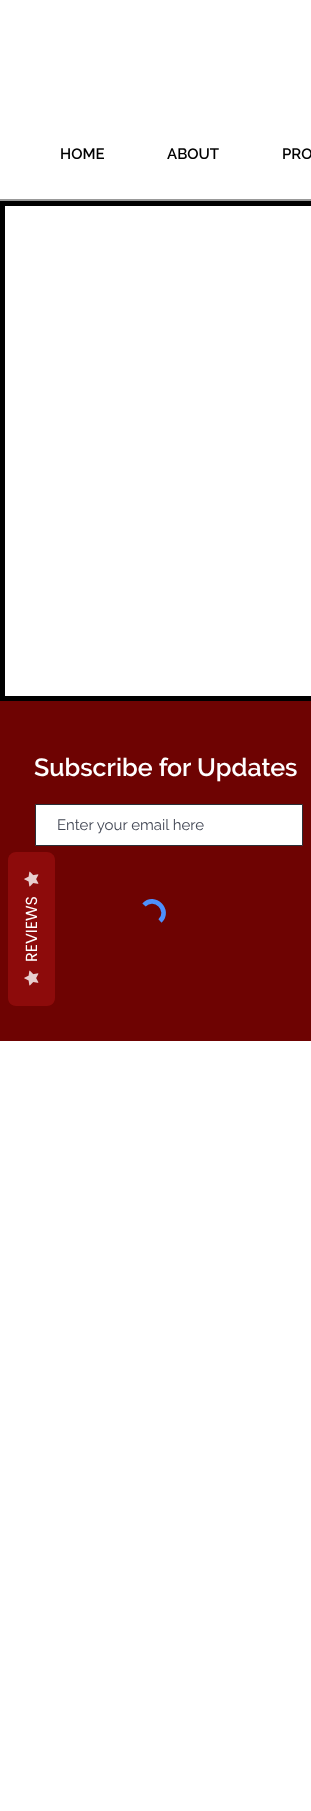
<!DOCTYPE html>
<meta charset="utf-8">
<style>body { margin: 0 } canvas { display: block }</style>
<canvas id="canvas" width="311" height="1811"></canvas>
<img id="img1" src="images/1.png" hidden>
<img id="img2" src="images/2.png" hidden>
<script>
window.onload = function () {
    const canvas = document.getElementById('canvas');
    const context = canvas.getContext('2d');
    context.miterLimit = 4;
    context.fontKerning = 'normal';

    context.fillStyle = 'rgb(255, 255, 255)';
    context.fillRect(0, 0, 311, 1811);
    context.fillStyle = 'rgb(153, 153, 153)';
    context.fillRect(0, 199, 311, 2);
    context.drawImage(document.getElementById('img1'), 0, 201, 311, 5);
    context.drawImage(document.getElementById('img1'), 0, 696, 311, 5);
    context.fillStyle = 'rgb(0, 0, 0)';
    context.fillRect(0, 206, 5, 490);
    context.fillStyle = 'rgb(110, 3, 2)';
    context.fillRect(0, 701, 311, 340);
    context.fillStyle = 'rgb(255, 255, 255)';
    context.beginPath();
    context.rect(35.5, 804.5, 267, 41);
    context.fill();
    context.strokeStyle = 'rgb(42, 47, 54)';
    context.stroke();
    context.beginPath();
    context.moveTo(144, 905);
    context.bezierCurveTo(154.5, 894, 171, 910.5, 160, 921);
    context.strokeStyle = 'rgb(77, 144, 254)';
    context.lineWidth = 4.6;
    context.stroke();
    context.fillStyle = 'rgb(141, 11, 11)';
    context.beginPath();
    context.moveTo(8, 998);
    context.lineTo(8, 860);
    context.bezierCurveTo(8, 855, 12, 852, 16, 852);
    context.lineTo(47, 852);
    context.bezierCurveTo(51, 852, 55, 855, 55, 860);
    context.lineTo(55, 998);
    context.bezierCurveTo(55, 1003, 51, 1006, 47, 1006);
    context.lineTo(16, 1006);
    context.bezierCurveTo(12, 1006, 8, 1003, 8, 998);
    context.closePath();
    context.fill();
    context.drawImage(document.getElementById('img2'), 24, 871, 15, 16);
    context.drawImage(document.getElementById('img2'), 24, 970, 15, 16);
    context.font = '600 15px Raleway';
    context.fillStyle = 'rgb(0, 0, 0)';
    context.fillText('HOME', 60, 159);
    context.fillText('ABOUT', 167, 159);
    context.fillText('PRO', 282, 159);
    context.font = '600 25px Raleway';
    context.fillStyle = 'rgb(255, 255, 255)';
    context.fillText('Subscribe for Updates', 34, 776);
    context.font = '15px Raleway';
    context.fillStyle = 'rgb(66, 71, 84)';
    context.fillText('Enter your email here', 57, 830);
    context.font = '16px Poppins';
    context.fillStyle = 'rgb(255, 255, 255)';
    context.save();
    context.translate(37, 962);
    context.rotate(-90 * Math.PI / 180);
    context.fillText('REVIEWS', 0, 0);
    context.restore();
};
</script>
